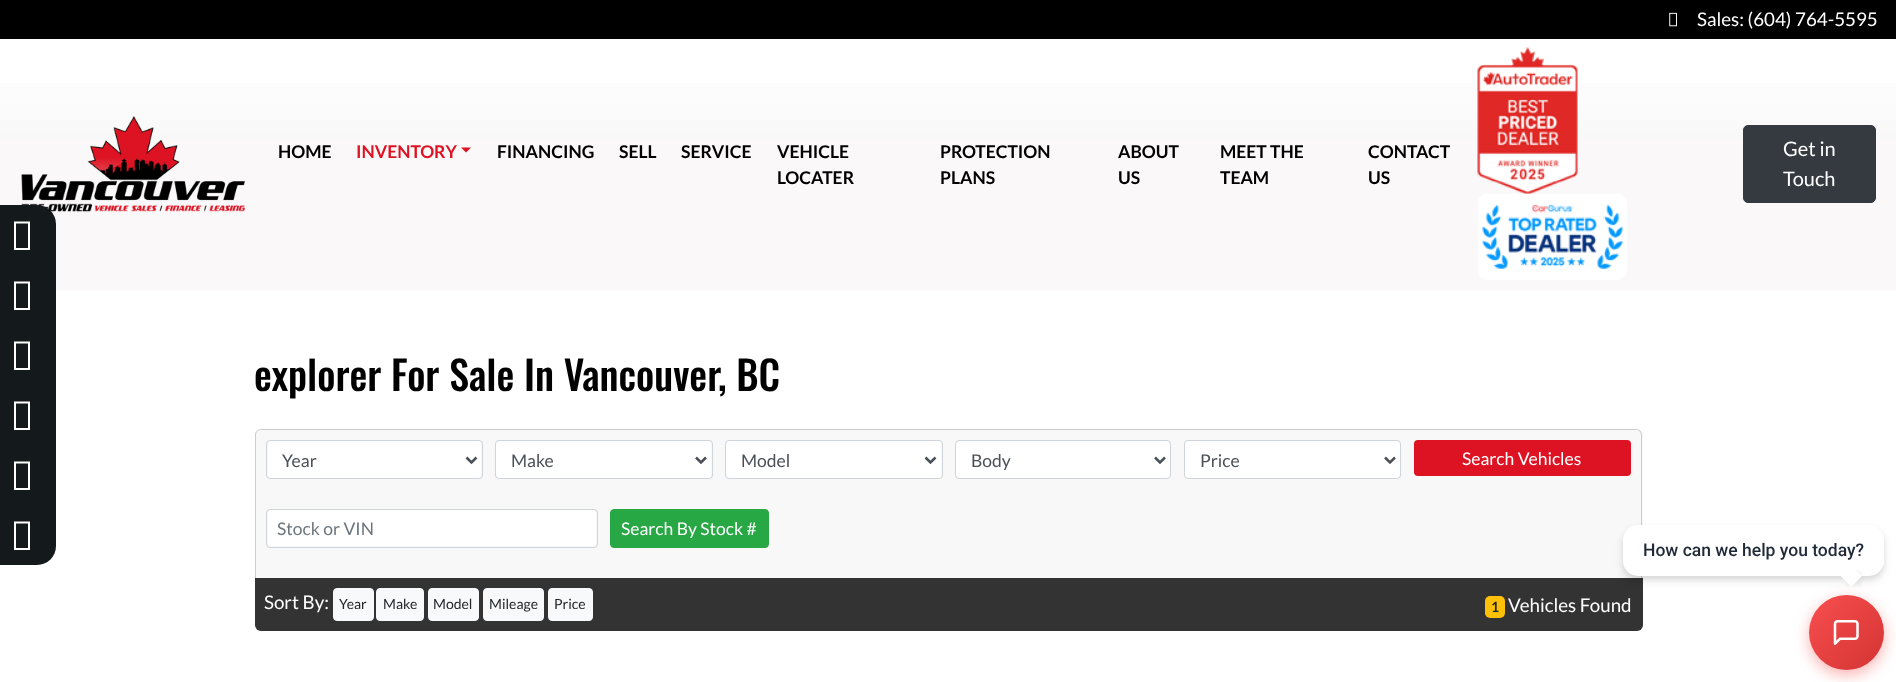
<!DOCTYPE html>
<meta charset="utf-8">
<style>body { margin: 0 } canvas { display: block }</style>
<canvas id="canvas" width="1896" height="682"></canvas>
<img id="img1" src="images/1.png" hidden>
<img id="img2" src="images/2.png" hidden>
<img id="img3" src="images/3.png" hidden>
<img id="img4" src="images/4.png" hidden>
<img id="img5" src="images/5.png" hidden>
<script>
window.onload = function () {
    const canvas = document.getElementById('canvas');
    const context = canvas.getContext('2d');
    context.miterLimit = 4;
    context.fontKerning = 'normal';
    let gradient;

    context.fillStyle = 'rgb(255, 255, 255)';
    context.fillRect(0, 0, 1896, 682);
    context.fillStyle = 'rgb(0, 0, 0)';
    context.fillRect(0, 0, 1896, 39);
    context.drawImage(document.getElementById('img1'), 1669, 12, 8, 15);
    context.fillStyle = 'rgb(250, 248, 249)';
    context.fillRect(0, 139, 1896, 151);
    gradient = context.createLinearGradient(948, 37, 948, 139);
    gradient.addColorStop(0, 'rgb(254, 254, 254)');
    gradient.addColorStop(0.6, 'rgb(252, 252, 252)');
    gradient.addColorStop(1, 'rgb(249, 248, 248)');
    context.fillStyle = gradient;
    context.fillRect(0, 83, 1896, 56);
    context.drawImage(document.getElementById('img2'), 21, 116, 224, 96);
    context.fillStyle = 'rgb(20, 25, 28)';
    context.beginPath();
    context.roundRect(0, 205, 56, 60, [0, 19, 0, 0]);
    context.fill();
    context.fillStyle = 'rgb(255, 255, 255)';
    context.beginPath();
    context.moveTo(14, 250);
    context.lineTo(14, 221.5);
    context.lineTo(30, 221.5);
    context.lineTo(30, 250);
    context.closePath();
    context.moveTo(16, 248);
    context.lineTo(28, 248);
    context.lineTo(28, 223.5);
    context.lineTo(16, 223.5);
    context.closePath();
    context.fill();
    context.fillStyle = 'rgb(20, 25, 28)';
    context.fillRect(0, 265, 56, 240);
    context.fillStyle = 'rgb(255, 255, 255)';
    context.beginPath();
    context.moveTo(14, 310);
    context.lineTo(14, 281.5);
    context.lineTo(30, 281.5);
    context.lineTo(30, 310);
    context.closePath();
    context.moveTo(16, 308);
    context.lineTo(28, 308);
    context.lineTo(28, 283.5);
    context.lineTo(16, 283.5);
    context.closePath();
    context.fill();
    context.beginPath();
    context.moveTo(14, 370);
    context.lineTo(14, 341.5);
    context.lineTo(30, 341.5);
    context.lineTo(30, 370);
    context.closePath();
    context.moveTo(16, 368);
    context.lineTo(28, 368);
    context.lineTo(28, 343.5);
    context.lineTo(16, 343.5);
    context.closePath();
    context.fill();
    context.beginPath();
    context.moveTo(14, 430);
    context.lineTo(14, 401.5);
    context.lineTo(30, 401.5);
    context.lineTo(30, 430);
    context.closePath();
    context.moveTo(16, 428);
    context.lineTo(28, 428);
    context.lineTo(28, 403.5);
    context.lineTo(16, 403.5);
    context.closePath();
    context.fill();
    context.beginPath();
    context.moveTo(14, 490);
    context.lineTo(14, 461.5);
    context.lineTo(30, 461.5);
    context.lineTo(30, 490);
    context.closePath();
    context.moveTo(16, 488);
    context.lineTo(28, 488);
    context.lineTo(28, 463.5);
    context.lineTo(16, 463.5);
    context.closePath();
    context.fill();
    context.fillStyle = 'rgb(20, 25, 28)';
    context.beginPath();
    context.roundRect(0, 505, 56, 60, [0, 0, 19, 0]);
    context.fill();
    context.fillStyle = 'rgb(255, 255, 255)';
    context.beginPath();
    context.moveTo(14, 550);
    context.lineTo(14, 521.5);
    context.lineTo(30, 521.5);
    context.lineTo(30, 550);
    context.closePath();
    context.moveTo(16, 548);
    context.lineTo(28, 548);
    context.lineTo(28, 523.5);
    context.lineTo(16, 523.5);
    context.closePath();
    context.fill();
    context.fillStyle = 'rgb(221, 19, 35)';
    context.beginPath();
    context.moveTo(461, 147.5);
    context.lineTo(471, 147.5);
    context.lineTo(466, 152.5);
    context.closePath();
    context.fill();
    context.drawImage(document.getElementById('img3'), 1477, 47, 101, 147);
    context.drawImage(document.getElementById('img4'), 1478, 193, 149, 87);
    context.fillStyle = 'rgb(52, 58, 64)';
    context.beginPath();
    context.roundRect(1743.5, 125.5, 132, 77, 4.5);
    context.fill();
    context.strokeStyle = 'rgb(52, 58, 64)';
    context.stroke();
    context.fillStyle = 'rgb(248, 248, 248)';
    context.beginPath();
    context.roundRect(255, 429, 1388, 149, [6, 6, 0, 0]);
    context.fill();
    context.fillStyle = 'rgb(204, 204, 204)';
    context.beginPath();
    context.moveTo(261, 429);
    context.lineTo(1636, 429);
    context.bezierCurveTo(1640, 429, 1642, 432, 1642, 435);
    context.lineTo(1642, 578);
    context.lineTo(255, 578);
    context.lineTo(255, 435);
    context.bezierCurveTo(255, 432, 258, 429, 261, 429);
    context.closePath();
    context.moveTo(261, 430);
    context.lineTo(1636, 430);
    context.bezierCurveTo(1639, 430, 1641, 432, 1641, 435);
    context.lineTo(1641, 578);
    context.lineTo(256, 578);
    context.lineTo(256, 435);
    context.bezierCurveTo(256, 432, 258, 430, 261, 430);
    context.closePath();
    context.fill('evenodd');
    context.fillStyle = 'rgb(255, 255, 255)';
    context.beginPath();
    context.roundRect(268, 441, 213, 37, 2.5);
    context.fill();
    context.beginPath();
    context.roundRect(266.5, 440.5, 216, 38, 3.5);
    context.strokeStyle = 'rgb(206, 212, 218)';
    context.stroke();
    context.beginPath();
    context.moveTo(466.5, 457.5);
    context.lineTo(471.5, 462.5);
    context.lineTo(476.5, 457.5);
    context.strokeStyle = 'rgb(73, 80, 87)';
    context.lineWidth = 2.5;
    context.stroke();
    context.beginPath();
    context.roundRect(496, 441, 215, 37, 2.5);
    context.fill();
    context.beginPath();
    context.roundRect(495.5, 440.5, 217, 38, 3.5);
    context.strokeStyle = 'rgb(206, 212, 218)';
    context.lineWidth = 1;
    context.stroke();
    context.beginPath();
    context.moveTo(696, 457.5);
    context.lineTo(701, 462.5);
    context.lineTo(706, 457.5);
    context.strokeStyle = 'rgb(73, 80, 87)';
    context.lineWidth = 2.5;
    context.stroke();
    context.beginPath();
    context.roundRect(726, 441, 215, 37, 2.5);
    context.fill();
    context.beginPath();
    context.roundRect(725.5, 440.5, 217, 38, 3.5);
    context.strokeStyle = 'rgb(206, 212, 218)';
    context.lineWidth = 1;
    context.stroke();
    context.beginPath();
    context.moveTo(925.5, 457.5);
    context.lineTo(930.5, 462.5);
    context.lineTo(935.5, 457.5);
    context.strokeStyle = 'rgb(73, 80, 87)';
    context.lineWidth = 2.5;
    context.stroke();
    context.beginPath();
    context.roundRect(956, 441, 214, 37, 2.5);
    context.fill();
    context.beginPath();
    context.roundRect(955.5, 440.5, 215, 38, 3.5);
    context.strokeStyle = 'rgb(206, 212, 218)';
    context.lineWidth = 1;
    context.stroke();
    context.beginPath();
    context.moveTo(1155, 457.5);
    context.lineTo(1160, 462.5);
    context.lineTo(1165, 457.5);
    context.strokeStyle = 'rgb(73, 80, 87)';
    context.lineWidth = 2.5;
    context.stroke();
    context.beginPath();
    context.roundRect(1185, 441, 215, 37, 2.5);
    context.fill();
    context.beginPath();
    context.roundRect(1184.5, 440.5, 216, 38, 3.5);
    context.strokeStyle = 'rgb(206, 212, 218)';
    context.lineWidth = 1;
    context.stroke();
    context.beginPath();
    context.moveTo(1385, 457.5);
    context.lineTo(1390, 462.5);
    context.lineTo(1395, 457.5);
    context.strokeStyle = 'rgb(73, 80, 87)';
    context.lineWidth = 2.5;
    context.stroke();
    context.fillStyle = 'rgb(221, 19, 35)';
    context.beginPath();
    context.roundRect(1414, 440, 217, 36, 4);
    context.fill();
    context.fillStyle = 'rgb(255, 255, 255)';
    context.beginPath();
    context.roundRect(268, 510, 328, 36, 2.5);
    context.fill();
    context.beginPath();
    context.roundRect(266.5, 509.5, 331, 38, 3.5);
    context.strokeStyle = 'rgb(206, 212, 218)';
    context.lineWidth = 1;
    context.stroke();
    context.fillStyle = 'rgb(40, 167, 69)';
    context.beginPath();
    context.roundRect(610.5, 509.5, 158, 38, 3.5);
    context.fill();
    context.strokeStyle = 'rgb(40, 167, 69)';
    context.stroke();
    context.fillStyle = 'rgb(51, 51, 51)';
    context.beginPath();
    context.roundRect(255, 578, 1388, 53, [0, 0, 6, 6]);
    context.fill();
    context.fillStyle = 'rgb(248, 249, 250)';
    context.beginPath();
    context.roundRect(333.5, 588.5, 40, 32, 3.5);
    context.fill();
    context.strokeStyle = 'rgb(248, 249, 250)';
    context.stroke();
    context.beginPath();
    context.roundRect(376.5, 588.5, 47, 32, 3.5);
    context.fill();
    context.stroke();
    context.beginPath();
    context.roundRect(428.5, 588.5, 50, 32, 3.5);
    context.fill();
    context.stroke();
    context.beginPath();
    context.roundRect(483.5, 588.5, 60, 32, 3.5);
    context.fill();
    context.stroke();
    context.beginPath();
    context.roundRect(548.5, 588.5, 44, 32, 3.5);
    context.fill();
    context.stroke();
    context.fillStyle = 'rgb(255, 193, 7)';
    context.beginPath();
    context.roundRect(1485, 596, 20, 22, 5);
    context.fill();
    context.fillStyle = 'rgba(0, 0, 0, 0.06)';
    context.filter = 'blur(2.5px)';
    context.beginPath();
    context.roundRect(1623, 528, 261, 51, 15);
    context.fill();
    context.filter = 'none';
    context.fillStyle = 'rgba(0, 0, 0, 0.1)';
    context.filter = 'blur(4px)';
    context.beginPath();
    context.roundRect(1623, 530, 261, 51, 15);
    context.fill();
    context.filter = 'none';
    context.fillStyle = 'rgb(255, 255, 255)';
    context.beginPath();
    context.roundRect(1623, 525, 261, 51, 15);
    context.fill();
    context.fillStyle = 'rgba(0, 0, 0, 0.05)';
    context.filter = 'blur(1.5px)';
    context.beginPath();
    context.rect(1846, 571, 15, 15);
    context.fill();
    context.filter = 'none';
    context.fillStyle = 'rgba(247, 59, 59, 0.4)';
    context.filter = 'blur(7.5px)';
    context.beginPath();
    context.roundRect(1809, 600, 75, 75, 37.5);
    context.fill();
    context.filter = 'none';
    context.fillStyle = 'rgb(255, 255, 255)';
    context.beginPath();
    context.moveTo(1851, 565.5);
    context.lineTo(1862, 576);
    context.lineTo(1851.5, 587);
    context.lineTo(1840.5, 576);
    context.closePath();
    context.fill();
    gradient = context.createLinearGradient(1809, 595, 1884, 670);
    gradient.addColorStop(0, 'rgb(248, 79, 79)');
    gradient.addColorStop(1, 'rgb(212, 51, 51)');
    context.fillStyle = gradient;
    context.beginPath();
    context.arc(1846.5, 632.5, 37.5, 0, 2 * Math.PI);
    context.fill();
    context.drawImage(document.getElementById('img5'), 1833, 620, 26, 25);
    context.font = '18.75px Lato';
    context.fillStyle = 'rgb(255, 255, 255)';
    context.fillText('Sales: (604) 764-5595', 1697, 26);
    context.font = 'bold 17.5px Lato';
    context.fillStyle = 'rgb(0, 0, 0)';
    context.fillText('HOME', 278, 158);
    context.fillStyle = 'rgb(221, 19, 35)';
    context.fillText('INVENTORY', 356, 158);
    context.fillStyle = 'rgb(0, 0, 0)';
    context.fillText('FINANCING', 497, 158);
    context.fillText('SELL', 619, 158);
    context.fillText('SERVICE', 681, 158);
    context.fillText('VEHICLE', 777, 158);
    context.fillText('LOCATER', 777, 184);
    context.fillText('PROTECTION', 940, 158);
    context.fillText('PLANS', 940, 184);
    context.fillText('ABOUT', 1118, 158);
    context.fillText('US', 1118, 184);
    context.fillText('MEET THE', 1220, 158);
    context.fillText('TEAM', 1220, 184);
    context.fillText('CONTACT', 1368, 158);
    context.fillText('US', 1368, 184);
    context.font = '20px Lato';
    context.fillStyle = 'rgb(255, 255, 255)';
    context.fillText('Get in', 1783, 156);
    context.fillText('Touch', 1783, 186);
    context.font = '500 40px Oswald';
    context.fillStyle = 'rgb(0, 0, 0)';
    context.fillText('explorer For Sale In Vancouver, BC', 254, 391);
    context.font = '17.5px Lato';
    context.fillStyle = 'rgb(73, 80, 87)';
    context.fillText('Year', 282, 467);
    context.fillText('Make', 511, 467);
    context.fillText('Model', 741, 467);
    context.fillText('Body', 971, 467);
    context.fillText('Price', 1200, 467);
    context.fillStyle = 'rgb(255, 255, 255)';
    context.fillText('Search Vehicles', 1462, 465);
    context.fillStyle = 'rgb(108, 117, 125)';
    context.fillText('Stock or VIN', 277, 535);
    context.fillStyle = 'rgb(255, 255, 255)';
    context.fillText('Search By Stock #', 621, 535);
    context.font = '18.75px Lato';
    context.fillText('Sort By:', 264, 609);
    context.font = '14px Lato';
    context.fillStyle = 'rgb(33, 37, 41)';
    context.fillText('Year', 339, 609);
    context.fillText('Make', 383, 609);
    context.fillText('Model', 433, 609);
    context.fillText('Mileage', 489, 609);
    context.fillText('Price', 554, 609);
    context.font = 'bold 14px Lato';
    context.fillText('1', 1491, 612);
    context.font = '18.75px Lato';
    context.fillStyle = 'rgb(255, 255, 255)';
    context.fillText('Vehicles Found', 1508, 612);
    context.font = '500 17.5px Roboto';
    context.fillStyle = 'rgb(31, 41, 55)';
    context.fillText('How can we help you today?', 1643, 556);
};
</script>
